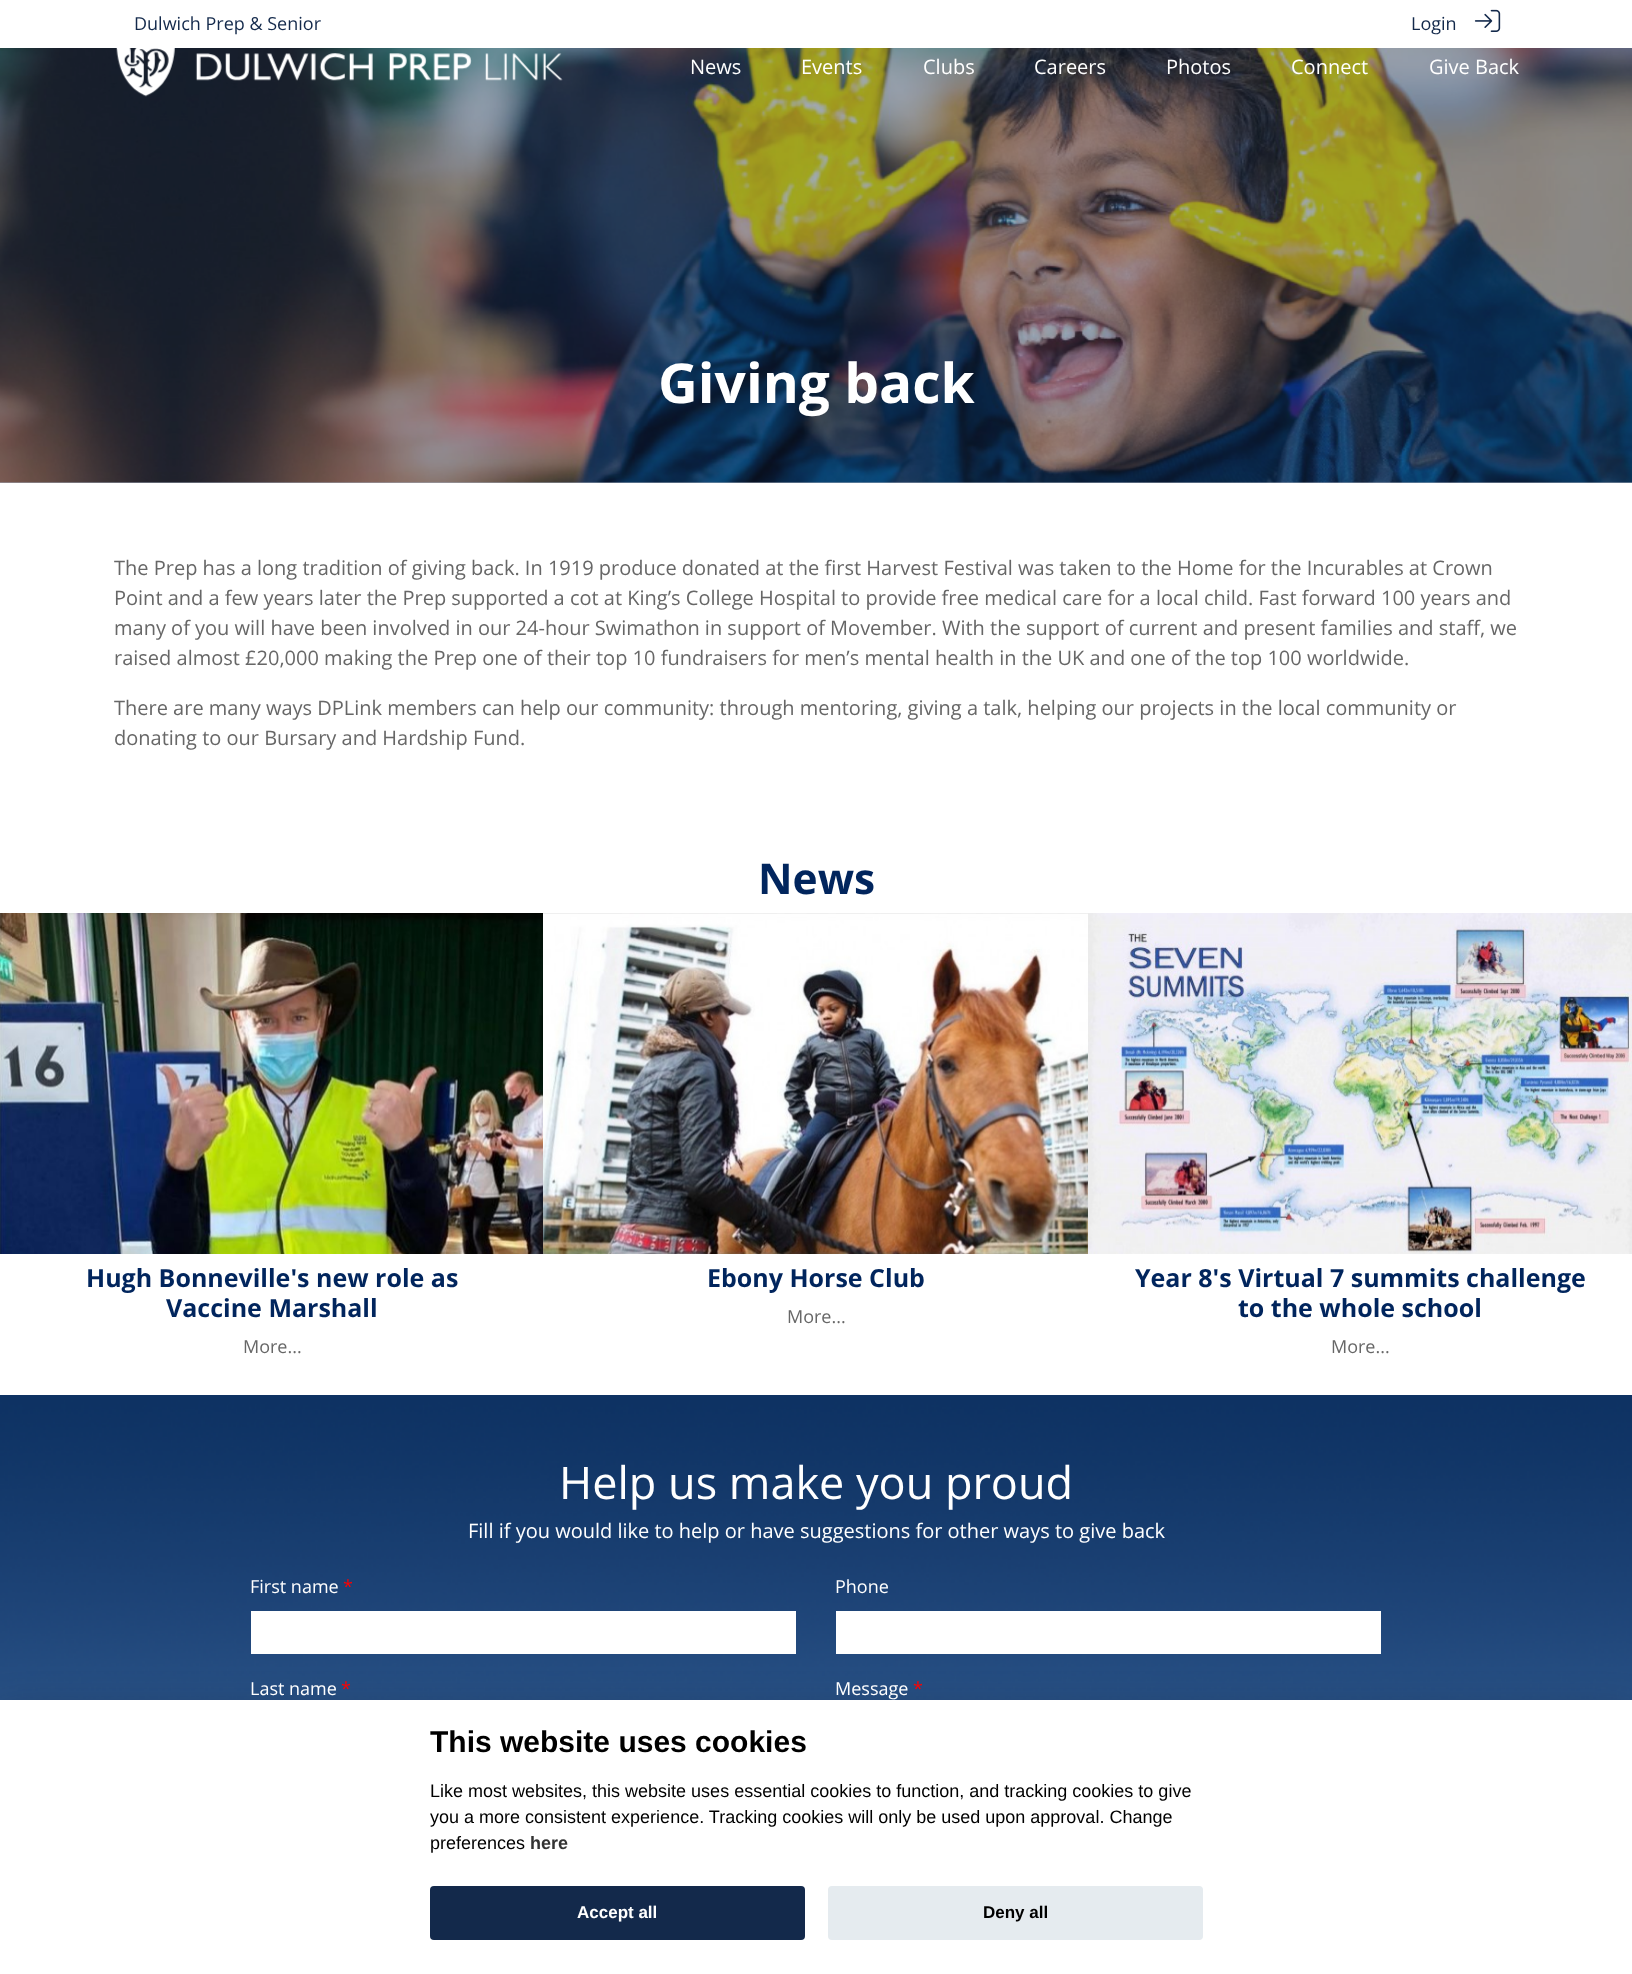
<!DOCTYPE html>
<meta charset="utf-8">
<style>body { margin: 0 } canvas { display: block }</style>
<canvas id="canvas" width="1632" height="1974"></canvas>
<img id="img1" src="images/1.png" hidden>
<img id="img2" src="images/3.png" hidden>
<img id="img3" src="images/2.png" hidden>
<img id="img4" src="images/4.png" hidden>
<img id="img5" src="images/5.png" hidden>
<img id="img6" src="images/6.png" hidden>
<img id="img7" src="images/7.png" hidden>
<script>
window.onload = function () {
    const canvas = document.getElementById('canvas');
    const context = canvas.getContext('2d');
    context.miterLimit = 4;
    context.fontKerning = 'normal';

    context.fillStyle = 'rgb(255, 255, 255)';
    context.fillRect(0, 0, 1632, 1974);
    context.fillStyle = 'rgb(161, 169, 183)';
    context.fillRect(0, 482, 1632, 1);
    context.drawImage(document.getElementById('img1'), 1474, 9, 27, 23);
    context.drawImage(document.getElementById('img2'), 0, 48, 1632, 435);
    context.drawImage(document.getElementById('img3'), 116, 48, 447, 49);
    context.drawImage(document.getElementById('img4'), 0, 913, 543, 341);
    context.drawImage(document.getElementById('img5'), 543, 913, 545, 341);
    context.drawImage(document.getElementById('img6'), 1088, 913, 544, 341);
    context.drawImage(document.getElementById('img7'), 0, 1395, 1632, 305);
    context.fillStyle = 'rgb(255, 255, 255)';
    context.fillRect(251, 1611, 545, 43);
    context.fillRect(836, 1611, 545, 43);
    context.fillStyle = 'rgba(2, 2, 3, 0.28)';
    context.filter = 'blur(19px)';
    context.beginPath();
    context.rect(0, 1713, 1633, 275);
    context.fill();
    context.filter = 'none';
    context.fillStyle = 'rgb(255, 255, 255)';
    context.fillRect(0, 1700, 1632, 274);
    context.fillStyle = 'rgb(19, 41, 75)';
    context.beginPath();
    context.roundRect(430, 1886, 375, 54, 4);
    context.fill();
    context.fillStyle = 'rgb(229, 235, 239)';
    context.beginPath();
    context.roundRect(828, 1886, 375, 54, 4);
    context.fill();
    context.font = '18px Open Sans';
    context.fillStyle = 'rgb(19, 41, 75)';
    context.fillText('Dulwich Prep & Senior', 134, 30);
    context.fillText('Login', 1411, 30);
    context.font = '20px Open Sans';
    context.fillStyle = 'rgb(255, 255, 255)';
    context.fillText('News', 690, 74);
    context.fillText('Events', 801, 74);
    context.fillText('Clubs', 923, 74);
    context.fillText('Careers', 1034, 74);
    context.fillText('Photos', 1166, 74);
    context.fillText('Connect', 1291, 74);
    context.fillText('Give Back', 1429, 74);
    context.font = 'bold 55px Open Sans';
    context.fillText('Giving back', 658, 403);
    context.font = '20px Open Sans';
    context.fillStyle = 'rgb(103, 103, 103)';
    context.fillText('The Prep has a long tradition of giving back. In 1919 produce donated at the first Harvest Festival was taken to the Home for the Incurables at Crown', 114, 575);
    context.fillText('Point and a few years later the Prep supported a cot at King’s College Hospital to provide free medical care for a local child. Fast forward 100 years and', 114, 605);
    context.fillText('many of you will have been involved in our 24-hour Swimathon in support of Movember. With the support of current and present families and staff, we', 114, 635);
    context.fillText('raised almost £20,000 making the Prep one of their top 10 fundraisers for men’s mental health in the UK and one of the top 100 worldwide.', 114, 665);
    context.fillText('There are many ways DPLink members can help our community: through mentoring, giving a talk, helping our projects in the local community or', 114, 715);
    context.fillText('donating to our Bursary and Hardship Fund.', 114, 745);
    context.font = 'bold 42.5px Open Sans';
    context.fillStyle = 'rgb(1, 37, 93)';
    context.fillText('News', 758, 894);
    context.font = 'bold 25px Open Sans';
    context.fillText('Hugh Bonneville\'s new role as', 86, 1287);
    context.fillText('Vaccine Marshall', 166, 1317);
    context.font = '18px Open Sans';
    context.fillStyle = 'rgb(103, 103, 103)';
    context.fillText('More...', 243, 1353);
    context.font = 'bold 25px Open Sans';
    context.fillStyle = 'rgb(1, 37, 93)';
    context.fillText('Ebony Horse Club', 707, 1287);
    context.font = '18px Open Sans';
    context.fillStyle = 'rgb(103, 103, 103)';
    context.fillText('More...', 787, 1323);
    context.font = 'bold 25px Open Sans';
    context.fillStyle = 'rgb(1, 37, 93)';
    context.fillText('Year 8\'s Virtual 7 summits challenge', 1135, 1287);
    context.fillText('to the whole school', 1238, 1317);
    context.font = '18px Open Sans';
    context.fillStyle = 'rgb(103, 103, 103)';
    context.fillText('More...', 1331, 1353);
    context.font = '45px Open Sans';
    context.fillStyle = 'rgb(255, 255, 255)';
    context.fillText('Help us make you proud', 559, 1499);
    context.font = '20px Open Sans';
    context.fillText('Fill if you would like to help or have suggestions for other ways to give back', 468, 1538);
    context.font = '18px Open Sans';
    context.fillText('First name', 250, 1593);
    context.fillStyle = 'rgb(255, 0, 0)';
    context.fillText('*', 343, 1593);
    context.fillStyle = 'rgb(255, 255, 255)';
    context.fillText('Last name', 250, 1695);
    context.fillStyle = 'rgb(255, 0, 0)';
    context.fillText('*', 341, 1695);
    context.fillStyle = 'rgb(255, 255, 255)';
    context.fillText('Phone', 835, 1593);
    context.fillText('Message', 835, 1695);
    context.fillStyle = 'rgb(255, 0, 0)';
    context.fillText('*', 913, 1695);
    context.font = 'bold 30px Liberation Sans';
    context.fillStyle = 'rgb(0, 0, 0)';
    context.fillText('This website uses cookies', 430, 1752);
    context.font = '18px Liberation Sans';
    context.fillText('Like most websites, this website uses essential cookies to function, and tracking cookies to give', 430, 1797);
    context.fillText('you a more consistent experience. Tracking cookies will only be used upon approval. Change', 430, 1823);
    context.fillText('preferences', 430, 1849);
    context.font = 'bold 18px Liberation Sans';
    context.fillStyle = 'rgb(51, 51, 51)';
    context.fillText('here', 530, 1849);
    context.font = 'bold 17px Liberation Sans';
    context.fillStyle = 'rgb(255, 255, 255)';
    context.fillText('Accept all', 577, 1918);
    context.fillStyle = 'rgb(0, 0, 0)';
    context.fillText('Deny all', 983, 1918);
};
</script>
